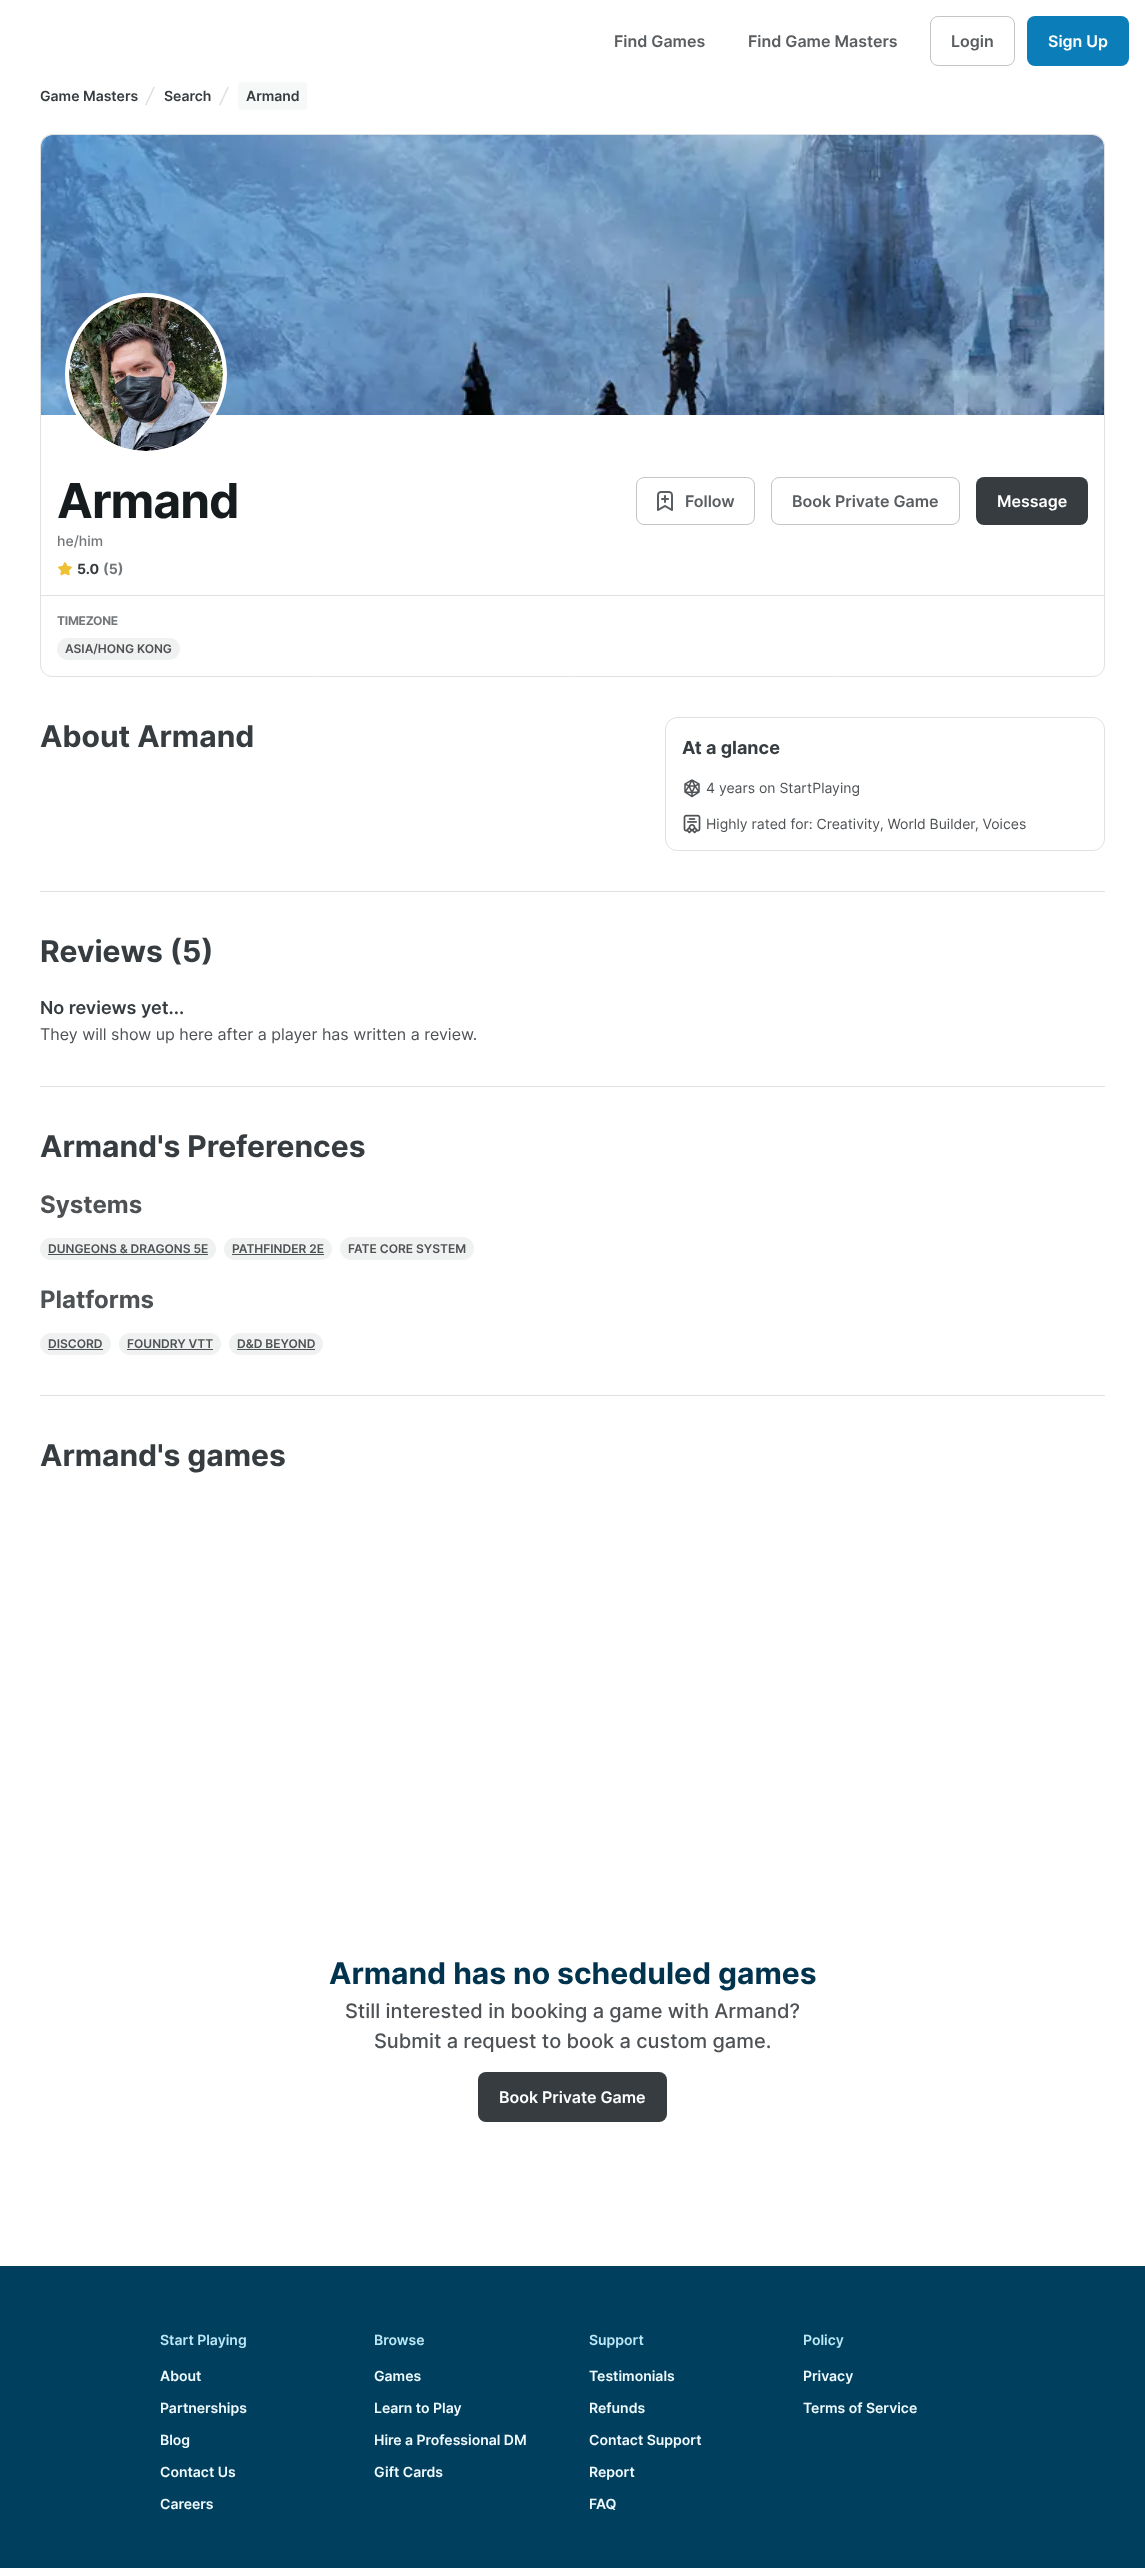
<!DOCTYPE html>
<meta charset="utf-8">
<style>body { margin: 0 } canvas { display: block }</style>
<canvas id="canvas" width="1145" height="2568"></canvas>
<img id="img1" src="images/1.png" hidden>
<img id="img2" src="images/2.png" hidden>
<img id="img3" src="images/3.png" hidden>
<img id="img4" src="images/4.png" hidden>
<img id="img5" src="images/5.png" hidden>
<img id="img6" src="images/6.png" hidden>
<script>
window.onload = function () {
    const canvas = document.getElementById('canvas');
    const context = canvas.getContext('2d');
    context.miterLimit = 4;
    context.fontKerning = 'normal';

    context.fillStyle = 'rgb(255, 255, 255)';
    context.fillRect(0, 0, 1145, 2568);
    context.beginPath();
    context.roundRect(930.5, 16.5, 84, 49, 7.5);
    context.strokeStyle = 'rgb(195, 198, 198)';
    context.stroke();
    context.fillStyle = 'rgb(11, 125, 184)';
    context.beginPath();
    context.roundRect(1027, 16, 102, 50, 8);
    context.fill();
    context.beginPath();
    context.moveTo(146, 104.5);
    context.lineTo(154, 87.5);
    context.strokeStyle = 'rgb(224, 225, 226)';
    context.lineWidth = 1.7;
    context.lineCap = 'round';
    context.lineJoin = 'round';
    context.stroke();
    context.beginPath();
    context.moveTo(220, 104.5);
    context.lineTo(228, 87.5);
    context.stroke();
    context.fillStyle = 'rgb(247, 248, 248)';
    context.beginPath();
    context.roundRect(238, 82, 69, 28, 4);
    context.fill();
    context.beginPath();
    context.roundRect(40.5, 134.5, 1064, 542, 11.5);
    context.lineWidth = 1;
    context.lineJoin = 'miter';
    context.stroke();
    context.drawImage(document.getElementById('img1'), 41, 135, 1063, 280);
    context.fillStyle = 'rgb(255, 255, 255)';
    context.beginPath();
    context.arc(146, 374, 79, 0, 2 * Math.PI);
    context.fill();
    context.strokeStyle = 'rgb(255, 255, 255)';
    context.lineWidth = 4;
    context.stroke();
    context.drawImage(document.getElementById('img2'), 69, 297, 154, 154);
    context.beginPath();
    context.roundRect(636.5, 477.5, 118, 47, 7.5);
    context.strokeStyle = 'rgb(195, 198, 198)';
    context.lineWidth = 1;
    context.stroke();
    context.drawImage(document.getElementById('img3'), 657, 491, 16, 20);
    context.beginPath();
    context.roundRect(771.5, 477.5, 188, 47, 7.5);
    context.stroke();
    context.fillStyle = 'rgb(54, 60, 63)';
    context.beginPath();
    context.roundRect(976, 477, 112, 48, 8);
    context.fill();
    context.drawImage(document.getElementById('img4'), 58, 562, 14, 14);
    context.fillStyle = 'rgb(224, 225, 226)';
    context.fillRect(41, 595, 1063, 1);
    context.fillStyle = 'rgb(240, 241, 241)';
    context.beginPath();
    context.roundRect(57, 638, 123, 22, 11);
    context.fill();
    context.beginPath();
    context.roundRect(665.5, 717.5, 439, 133, 11.5);
    context.strokeStyle = 'rgb(224, 225, 226)';
    context.stroke();
    context.drawImage(document.getElementById('img5'), 684, 779, 16, 19);
    context.drawImage(document.getElementById('img6'), 683, 814, 18, 20);
    context.fillStyle = 'rgb(224, 225, 226)';
    context.fillRect(40, 891, 1065, 1);
    context.fillRect(40, 1086, 1065, 1);
    context.fillStyle = 'rgb(240, 241, 241)';
    context.beginPath();
    context.roundRect(40, 1238, 176, 22, 11);
    context.fill();
    context.fillStyle = 'rgb(78, 82, 85)';
    context.fillRect(48, 1254, 160, 1);
    context.fillStyle = 'rgb(240, 241, 241)';
    context.beginPath();
    context.roundRect(224, 1238, 108, 22, 11);
    context.fill();
    context.fillStyle = 'rgb(78, 82, 85)';
    context.fillRect(232, 1254, 92, 1);
    context.fillStyle = 'rgb(240, 241, 241)';
    context.beginPath();
    context.roundRect(340, 1237, 134, 23, 11.5);
    context.fill();
    context.beginPath();
    context.roundRect(40, 1333, 71, 22, 11);
    context.fill();
    context.fillStyle = 'rgb(78, 82, 85)';
    context.fillRect(48, 1349, 55, 1);
    context.fillStyle = 'rgb(240, 241, 241)';
    context.beginPath();
    context.roundRect(119, 1333, 102, 22, 11);
    context.fill();
    context.fillStyle = 'rgb(78, 82, 85)';
    context.fillRect(127, 1349, 86, 1);
    context.fillStyle = 'rgb(240, 241, 241)';
    context.beginPath();
    context.roundRect(229, 1333, 94, 22, 11);
    context.fill();
    context.fillStyle = 'rgb(78, 82, 85)';
    context.fillRect(237, 1349, 78, 1);
    context.fillStyle = 'rgb(224, 225, 226)';
    context.fillRect(40, 1395, 1065, 1);
    context.fillStyle = 'rgb(54, 60, 63)';
    context.beginPath();
    context.roundRect(478, 2072, 189, 50, 8);
    context.fill();
    context.fillStyle = 'rgb(0, 63, 94)';
    context.fillRect(0, 2266, 1145, 302);
    context.font = '600 16px Inter';
    context.fillStyle = 'rgb(90, 94, 97)';
    context.fillText('Find Games', 614, 47);
    context.fillText('Find Game Masters', 748, 47);
    context.fillText('Login', 951, 47);
    context.fillStyle = 'rgb(255, 255, 255)';
    context.fillText('Sign Up', 1048, 47);
    context.font = '600 14px Inter';
    context.fillStyle = 'rgb(54, 60, 63)';
    context.fillText('Game Masters', 40, 101);
    context.fillText('Search', 164, 101);
    context.fillText('Armand', 246, 101);
    context.letterSpacing = '-1px';
    context.font = 'bold 48px Inter';
    context.fillStyle = 'rgb(22, 27, 30)';
    context.fillText('Armand', 57, 518);
    context.letterSpacing = '0px';
    context.font = '600 16px Inter';
    context.fillStyle = 'rgb(90, 94, 97)';
    context.fillText('Follow', 685, 507);
    context.fillText('Book Private Game', 792, 507);
    context.fillStyle = 'rgb(255, 255, 255)';
    context.fillText('Message', 997, 507);
    context.font = '500 14px Inter';
    context.fillStyle = 'rgb(115, 119, 121)';
    context.fillText('he/him', 57, 546);
    context.font = 'bold 14px Inter';
    context.fillStyle = 'rgb(54, 60, 63)';
    context.fillText('5.0', 77, 574);
    context.fillStyle = 'rgb(115, 119, 121)';
    context.fillText('(5)', 103, 574);
    context.letterSpacing = '-0.25px';
    context.font = 'bold 12px Inter';
    context.fillText('TIMEZONE', 57, 625);
    context.letterSpacing = '0px';
    context.font = '600 12px Inter';
    context.fillStyle = 'rgb(78, 82, 85)';
    context.fillText('ASIA/HONG KONG', 65, 653);
    context.font = 'bold 30px Inter';
    context.fillStyle = 'rgb(54, 60, 63)';
    context.fillText('About Armand', 40, 747);
    context.font = 'bold 18px Inter';
    context.fillText('At a glance', 682, 754);
    context.font = '14px Inter';
    context.fillStyle = 'rgb(78, 82, 85)';
    context.fillText('4 years on StartPlaying', 706, 793);
    context.fillText('Highly rated for: Creativity, World Builder, Voices', 706, 829);
    context.font = 'bold 30px Inter';
    context.fillStyle = 'rgb(54, 60, 63)';
    context.fillText('Reviews (5)', 40, 962);
    context.font = '600 18px Inter';
    context.fillText('No reviews yet...', 40, 1014);
    context.font = '16px Inter';
    context.fillStyle = 'rgb(78, 82, 85)';
    context.fillText('They will show up here after a player has written a review.', 40, 1040);
    context.font = 'bold 30px Inter';
    context.fillStyle = 'rgb(54, 60, 63)';
    context.fillText('Armand\'s Preferences', 40, 1157);
    context.font = 'bold 24px Inter';
    context.fillStyle = 'rgb(78, 82, 85)';
    context.fillText('Systems', 40, 1213);
    context.font = '600 12px Inter';
    context.fillText('DUNGEONS & DRAGONS 5E', 48, 1253);
    context.fillText('PATHFINDER 2E', 232, 1253);
    context.fillText('FATE CORE SYSTEM', 348, 1253);
    context.font = 'bold 24px Inter';
    context.fillText('Platforms', 40, 1308);
    context.font = '600 12px Inter';
    context.fillText('DISCORD', 48, 1348);
    context.fillText('FOUNDRY VTT', 127, 1348);
    context.fillText('D&D BEYOND', 237, 1348);
    context.font = 'bold 30px Inter';
    context.fillStyle = 'rgb(54, 60, 63)';
    context.fillText('Armand\'s games', 40, 1466);
    context.fillStyle = 'rgb(0, 51, 78)';
    context.fillText('Armand has no scheduled games', 329, 1984);
    context.font = '500 20px Inter';
    context.fillStyle = 'rgb(78, 82, 85)';
    context.fillText('Still interested in booking a game with Armand?', 345, 2018);
    context.fillText('Submit a request to book a custom game.', 374, 2048);
    context.font = '600 16px Inter';
    context.fillStyle = 'rgb(255, 255, 255)';
    context.fillText('Book Private Game', 499, 2103);
    context.font = '600 14px Inter';
    context.fillStyle = 'rgb(187, 232, 247)';
    context.fillText('Start Playing', 160, 2345);
    context.fillStyle = 'rgb(239, 251, 255)';
    context.fillText('About', 160, 2381);
    context.fillText('Partnerships', 160, 2413);
    context.fillText('Blog', 160, 2445);
    context.fillText('Contact Us', 160, 2477);
    context.fillText('Careers', 160, 2509);
    context.fillStyle = 'rgb(187, 232, 247)';
    context.fillText('Browse', 374, 2345);
    context.fillStyle = 'rgb(239, 251, 255)';
    context.fillText('Games', 374, 2381);
    context.fillText('Learn to Play', 374, 2413);
    context.fillText('Hire a Professional DM', 374, 2445);
    context.fillText('Gift Cards', 374, 2477);
    context.fillStyle = 'rgb(187, 232, 247)';
    context.fillText('Support', 589, 2345);
    context.fillStyle = 'rgb(239, 251, 255)';
    context.fillText('Testimonials', 589, 2381);
    context.fillText('Refunds', 589, 2413);
    context.fillText('Contact Support', 589, 2445);
    context.fillText('Report', 589, 2477);
    context.fillText('FAQ', 589, 2509);
    context.fillStyle = 'rgb(187, 232, 247)';
    context.fillText('Policy', 803, 2345);
    context.fillStyle = 'rgb(239, 251, 255)';
    context.fillText('Privacy', 803, 2381);
    context.fillText('Terms of Service', 803, 2413);
};
</script>
